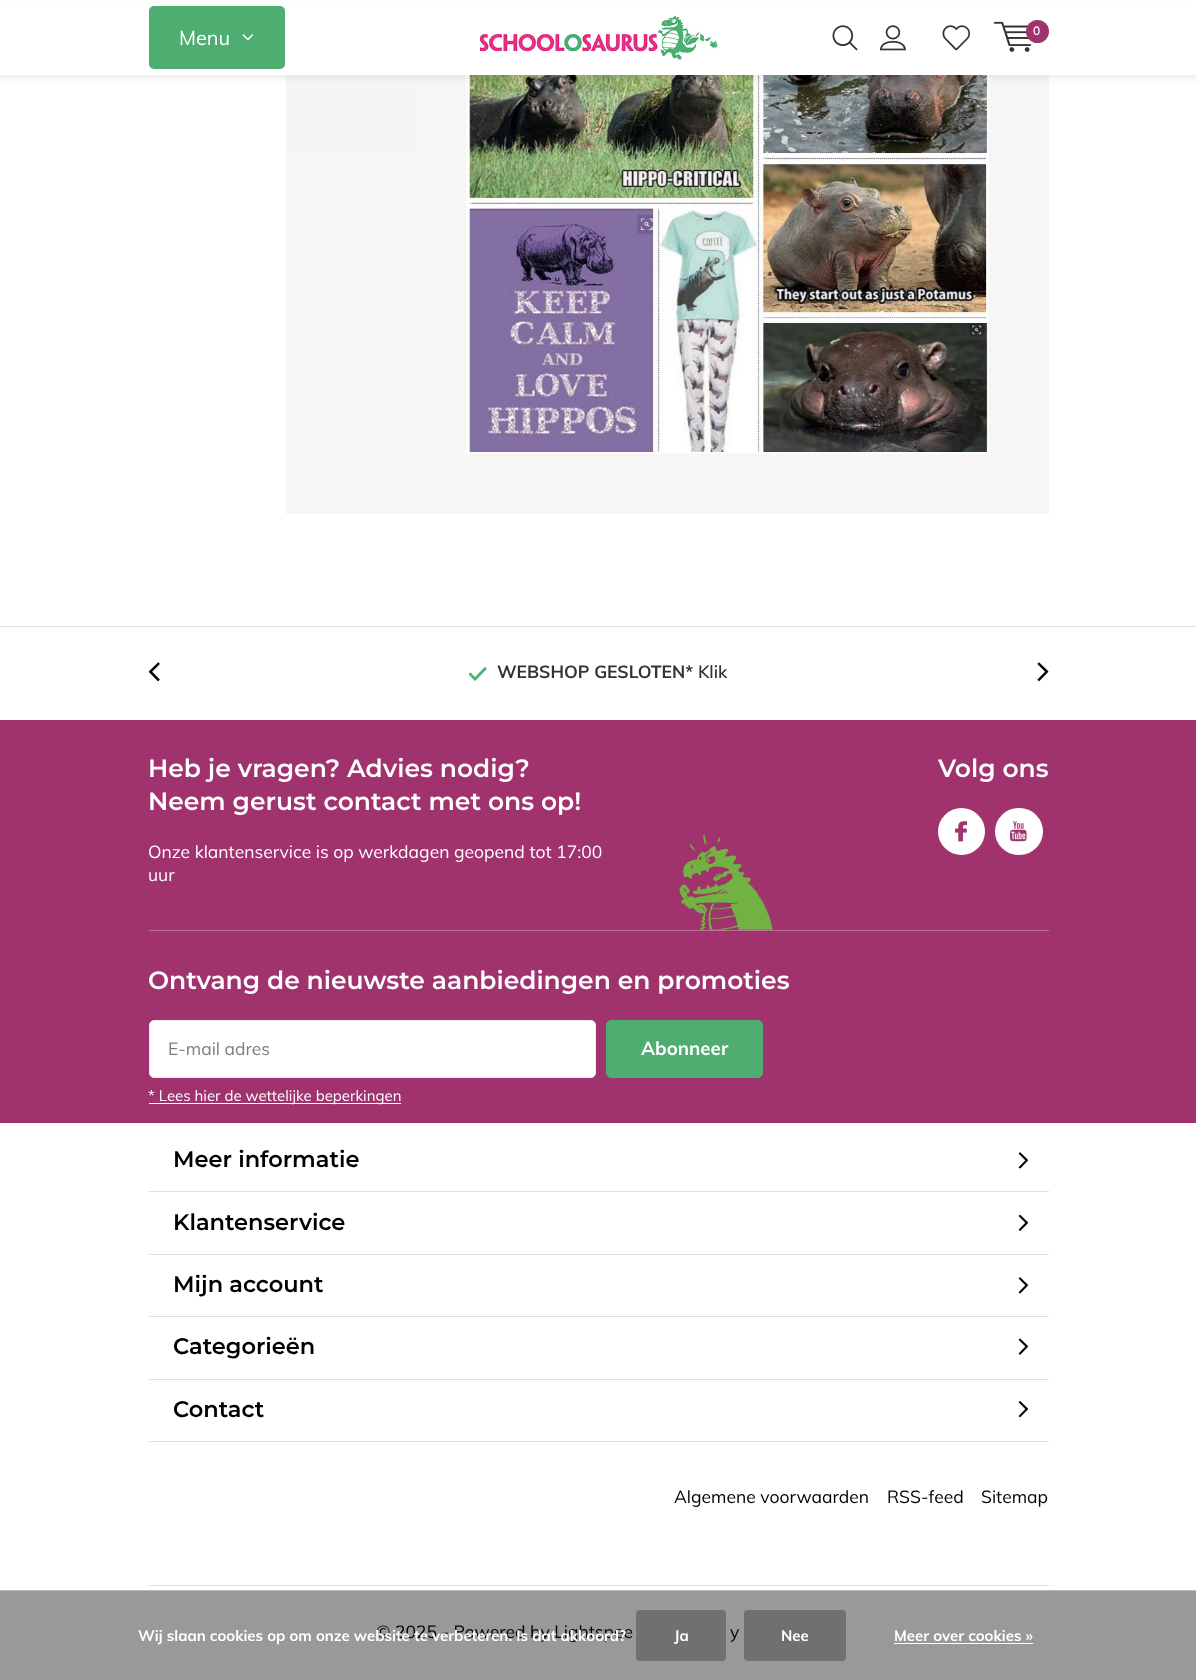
<!DOCTYPE html>
<meta charset="utf-8">
<style>body { margin: 0 } canvas { display: block }</style>
<canvas id="canvas" width="1196" height="1680"></canvas>
<img id="img1" src="images/7.png" hidden>
<img id="img2" src="images/8.png" hidden>
<img id="img3" src="images/1.png" hidden>
<img id="img4" src="images/2.png" hidden>
<img id="img5" src="images/3.png" hidden>
<img id="img6" src="images/4.png" hidden>
<img id="img7" src="images/5.png" hidden>
<img id="img8" src="images/6.png" hidden>
<img id="img9" src="images/9.png" hidden>
<img id="img10" src="images/10.png" hidden>
<img id="img11" src="images/11.png" hidden>
<img id="img12" src="images/12.png" hidden>
<img id="img13" src="images/13.png" hidden>
<img id="img14" src="images/14.png" hidden>
<img id="img15" src="images/15.png" hidden>
<img id="img16" src="images/16.png" hidden>
<img id="img17" src="images/17.png" hidden>
<img id="img18" src="images/18.png" hidden>
<script>
window.onload = function () {
    const canvas = document.getElementById('canvas');
    const context = canvas.getContext('2d');
    context.miterLimit = 4;
    context.fontKerning = 'normal';

    context.fillStyle = 'rgb(255, 255, 255)';
    context.fillRect(0, 0, 1196, 1680);
    context.fillStyle = 'rgb(153, 153, 153)';
    context.fillRect(0, 1591, 1196, 89);
    context.fillStyle = 'rgb(246, 246, 246)';
    context.fillRect(286, 75, 763, 439);
    context.drawImage(document.getElementById('img1'), 148, 75, 271, 81);
    context.fillStyle = 'rgba(0, 0, 0, 0.04)';
    context.fillRect(286, 75, 133, 81);
    context.drawImage(document.getElementById('img2'), 466, 75, 523, 379);
    context.fillStyle = 'rgba(0, 0, 0, 0.05)';
    context.filter = 'blur(2.5px)';
    context.beginPath();
    context.rect(-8, 5, 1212, 75);
    context.fill();
    context.filter = 'none';
    context.fillStyle = 'rgb(255, 255, 255)';
    context.fillRect(0, 3, 1196, 72);
    context.drawImage(document.getElementById('img3'), 480, 14, 238, 47);
    context.fillStyle = 'rgb(78, 174, 113)';
    context.beginPath();
    context.roundRect(149, 6, 136, 63, 5);
    context.fill();
    context.drawImage(document.getElementById('img4'), 242, 34, 12, 7);
    context.drawImage(document.getElementById('img5'), 832, 25, 26, 26);
    context.drawImage(document.getElementById('img6'), 880, 25, 26, 26);
    context.drawImage(document.getElementById('img7'), 942, 25, 28, 26);
    context.drawImage(document.getElementById('img8'), 993, 21, 39, 31);
    context.fillStyle = 'rgb(160, 50, 109)';
    context.beginPath();
    context.arc(1037.5, 31.5, 11.5, 0, 2 * Math.PI);
    context.fill();
    context.fillStyle = 'rgb(224, 224, 224)';
    context.fillRect(0, 626, 1196, 1);
    context.drawImage(document.getElementById('img9'), 149, 662, 11, 20);
    context.drawImage(document.getElementById('img10'), 1037, 662, 12, 20);
    context.drawImage(document.getElementById('img11'), 468, 667, 19, 14);
    context.fillStyle = 'rgb(160, 50, 109)';
    context.fillRect(0, 720, 1196, 403);
    context.drawImage(document.getElementById('img12'), 679, 835, 94, 95);
    context.fillStyle = 'rgb(255, 255, 255)';
    context.beginPath();
    context.arc(961.5, 831.5, 23.5, 0, 2 * Math.PI);
    context.fill();
    context.drawImage(document.getElementById('img13'), 955, 821, 13, 21);
    context.beginPath();
    context.roundRect(995, 808, 48, 47, 23.5);
    context.fill();
    context.drawImage(document.getElementById('img14'), 1010, 821, 17, 21);
    context.fillStyle = 'rgb(189, 112, 153)';
    context.fillRect(149, 930, 900, 1);
    context.fillStyle = 'rgb(255, 255, 255)';
    context.beginPath();
    context.roundRect(149.5, 1020.5, 446, 57, 4.5);
    context.fill();
    context.strokeStyle = 'rgb(237, 237, 237)';
    context.stroke();
    context.fillStyle = 'rgb(79, 173, 113)';
    context.beginPath();
    context.roundRect(606.5, 1020.5, 156, 57, 4.5);
    context.fill();
    context.strokeStyle = 'rgb(79, 173, 113)';
    context.stroke();
    context.fillStyle = 'rgb(255, 255, 255)';
    context.fillRect(149, 1103, 252, 1);
    context.fillStyle = 'rgb(224, 224, 224)';
    context.fillRect(149, 1441, 900, 1);
    context.drawImage(document.getElementById('img15'), 1018, 1152, 11, 17);
    context.fillRect(149, 1191, 900, 1);
    context.drawImage(document.getElementById('img16'), 1018, 1214, 11, 17);
    context.fillRect(149, 1254, 900, 1);
    context.drawImage(document.getElementById('img15'), 1018, 1277, 11, 17);
    context.fillRect(149, 1316, 900, 1);
    context.drawImage(document.getElementById('img17'), 1018, 1338, 11, 17);
    context.fillRect(149, 1379, 900, 1);
    context.drawImage(document.getElementById('img18'), 1018, 1401, 11, 17);
    context.fillRect(149, 1585, 900, 1);
    context.fillStyle = 'rgb(187, 187, 187)';
    context.fillRect(0, 1590, 1196, 1);
    context.fillStyle = 'rgb(112, 112, 112)';
    context.beginPath();
    context.roundRect(636, 1610, 90, 51, 4);
    context.fill();
    context.beginPath();
    context.roundRect(744, 1610, 102, 51, 4);
    context.fill();
    context.fillStyle = 'rgb(255, 255, 255)';
    context.fillRect(894, 1643, 139, 1);
    context.font = '20px Muli';
    context.fillText('Menu', 179, 45);
    context.font = '600 12px Muli';
    context.fillText('0', 1033, 35);
    context.font = 'bold 17.5px Muli';
    context.fillStyle = 'rgb(51, 51, 51)';
    context.fillText('WEBSHOP GESLOTEN*', 497, 678);
    context.font = '600 17.5px Muli';
    context.fillText('Klik', 698, 678);
    context.font = '600 25px Montserrat';
    context.fillStyle = 'rgb(255, 255, 255)';
    context.fillText('Heb je vragen? Advies nodig?', 148, 777);
    context.fillText('Neem gerust contact met ons op!', 148, 810);
    context.font = '17.5px Muli';
    context.fillText('Onze klantenservice is op werkdagen geopend tot 17:00', 148, 858);
    context.fillText('uur', 148, 881);
    context.font = '600 25px Montserrat';
    context.fillText('Volg ons', 938, 777);
    context.fillText('Ontvang de nieuwste aanbiedingen en promoties', 148, 989);
    context.font = '17.5px Muli';
    context.fillStyle = 'rgb(125, 125, 125)';
    context.fillText('E-mail adres', 168, 1055);
    context.font = 'bold 18.75px Muli';
    context.fillStyle = 'rgb(255, 255, 255)';
    context.fillText('Abonneer', 641, 1055);
    context.font = '15px Muli';
    context.fillText('* Lees hier de wettelijke beperkingen', 148, 1101);
    context.font = '600 22.5px Montserrat';
    context.fillStyle = 'rgb(0, 0, 0)';
    context.fillText('Meer informatie', 173, 1167);
    context.fillText('Klantenservice', 173, 1230);
    context.fillText('Mijn account', 173, 1292);
    context.fillText('Categorieën', 173, 1354);
    context.fillText('Contact', 173, 1417);
    context.font = '17.5px Muli';
    context.fillText('Algemene voorwaarden', 674, 1503);
    context.fillText('RSS-feed', 887, 1503);
    context.fillText('Sitemap', 981, 1503);
    context.fillText('© 2025 - Powered by Lightspee', 376, 1638);
    context.fillText('y', 730, 1638);
    context.font = 'bold 15px Muli';
    context.fillStyle = 'rgb(255, 255, 255)';
    context.fillText('Wij slaan cookies op om onze website te verbeteren. Is dat akkoord?', 138, 1641);
    context.fillText('Ja', 674, 1641);
    context.fillText('Nee', 781, 1641);
    context.fillText('Meer over cookies »', 894, 1641);
};
</script>
